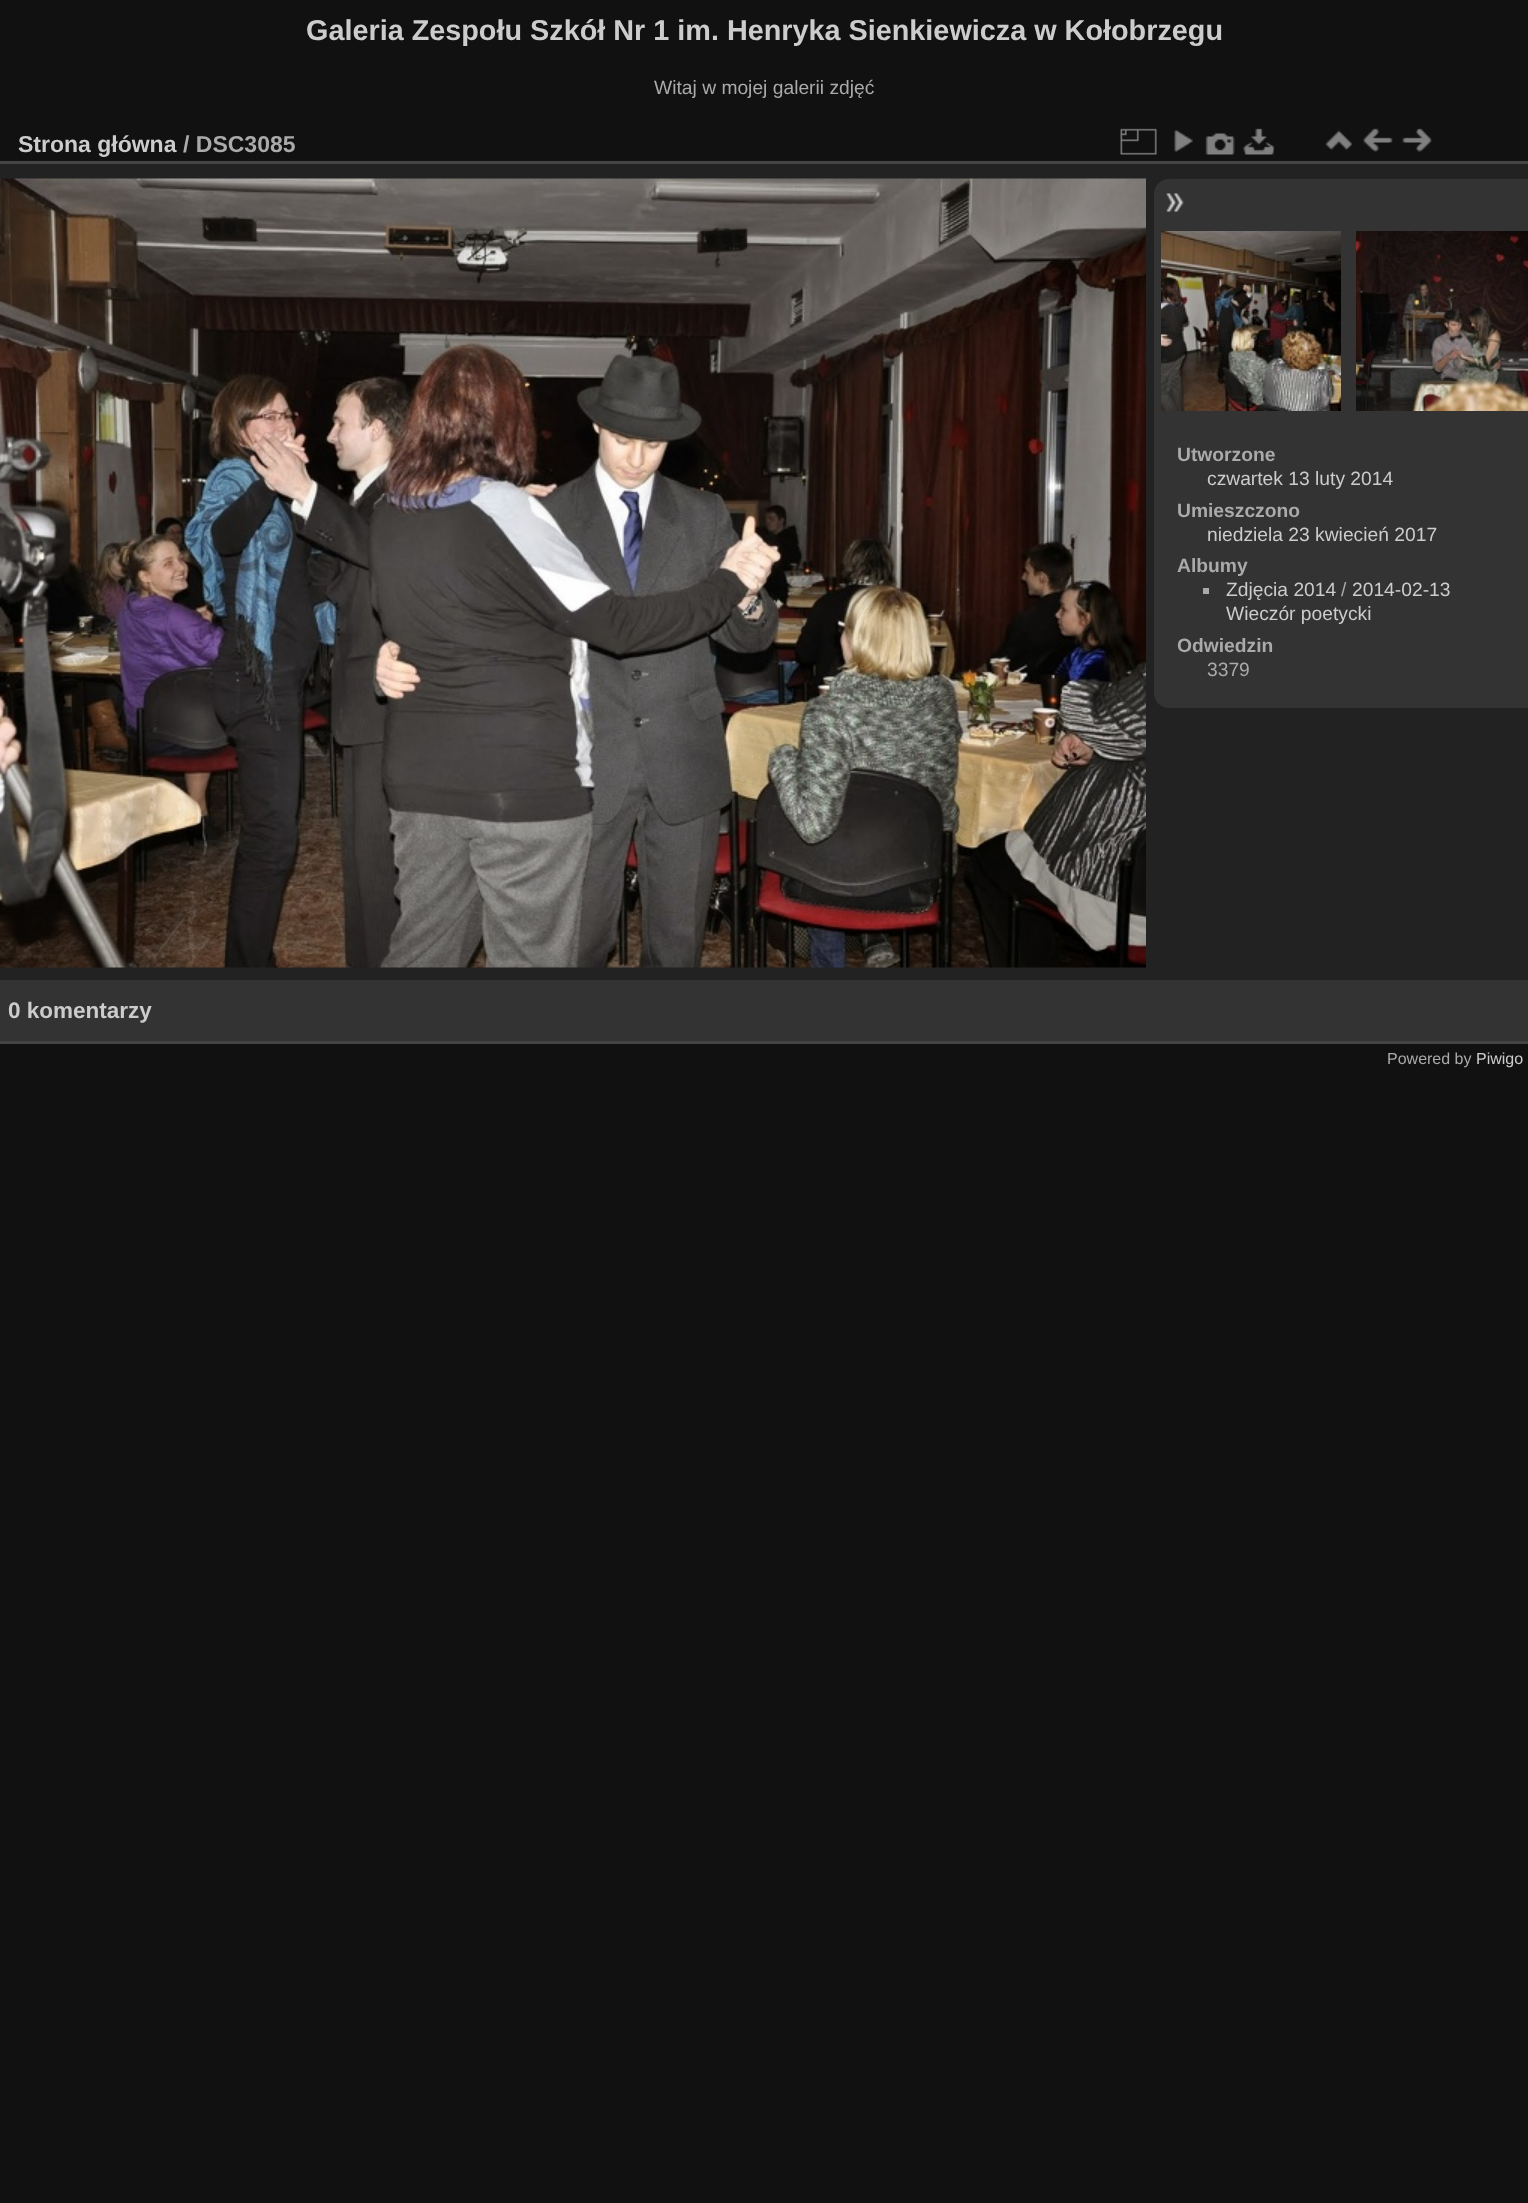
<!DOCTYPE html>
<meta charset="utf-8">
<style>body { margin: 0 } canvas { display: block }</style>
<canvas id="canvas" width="1528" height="2203"></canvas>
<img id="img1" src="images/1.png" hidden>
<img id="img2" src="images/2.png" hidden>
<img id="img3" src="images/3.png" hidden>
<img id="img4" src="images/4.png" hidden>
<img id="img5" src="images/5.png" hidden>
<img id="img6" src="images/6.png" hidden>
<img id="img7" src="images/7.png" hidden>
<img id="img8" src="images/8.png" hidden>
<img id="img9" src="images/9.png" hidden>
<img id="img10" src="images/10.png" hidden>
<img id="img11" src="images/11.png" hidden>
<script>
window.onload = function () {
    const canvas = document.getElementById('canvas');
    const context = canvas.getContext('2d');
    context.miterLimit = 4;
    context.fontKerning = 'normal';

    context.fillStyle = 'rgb(17, 17, 17)';
    context.fillRect(0, 0, 1528, 2203);
    context.fillStyle = 'rgb(34, 34, 34)';
    context.fillRect(0, 164, 1528, 816);
    context.fillStyle = 'rgb(68, 68, 68)';
    context.fillRect(0, 1041, 1528, 3);
    context.fillRect(0, 161, 1528, 3);
    context.drawImage(document.getElementById('img1'), 1120, 128, 37, 27);
    context.drawImage(document.getElementById('img2'), 1174, 130, 19, 22);
    context.drawImage(document.getElementById('img3'), 1205, 133, 30, 22);
    context.drawImage(document.getElementById('img4'), 1243, 128, 32, 27);
    context.drawImage(document.getElementById('img5'), 1325, 130, 27, 21);
    context.drawImage(document.getElementById('img6'), 1363, 128, 30, 24);
    context.drawImage(document.getElementById('img7'), 1402, 128, 30, 24);
    context.drawImage(document.getElementById('img8'), 0, 178, 1146, 790);
    context.fillStyle = 'rgb(51, 51, 51)';
    context.beginPath();
    context.moveTo(1169, 179);
    context.lineTo(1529, 179);
    context.lineTo(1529, 708);
    context.lineTo(1169, 708);
    context.bezierCurveTo(1160.5, 708, 1154, 701.5, 1154, 693);
    context.lineTo(1154, 194);
    context.bezierCurveTo(1154, 185.5, 1160.5, 179, 1169, 179);
    context.closePath();
    context.fill();
    context.drawImage(document.getElementById('img9'), 1166, 193, 18, 19);
    context.drawImage(document.getElementById('img10'), 1161, 231, 180, 180);
    context.drawImage(document.getElementById('img11'), 1356, 231, 172, 180);
    context.fillStyle = 'rgb(170, 170, 170)';
    context.fillRect(1203, 588, 6, 6);
    context.fillStyle = 'rgb(51, 51, 51)';
    context.fillRect(0, 980, 1528, 61);
    context.font = 'bold 28.8px Liberation Sans';
    context.fillStyle = 'rgb(204, 204, 204)';
    context.fillText('Galeria Zespołu Szkół Nr 1 im. Henryka Sienkiewicza w Kołobrzegu', 306, 40);
    context.font = '19.25px Liberation Sans';
    context.fillStyle = 'rgb(170, 170, 170)';
    context.fillText('Witaj w mojej galerii zdjęć', 654, 94);
    context.font = 'bold 23px Liberation Sans';
    context.fillStyle = 'rgb(204, 204, 204)';
    context.fillText('Strona główna', 18, 152);
    context.fillStyle = 'rgb(170, 170, 170)';
    context.fillText('/ DSC3085', 183, 152);
    context.font = 'bold 19.25px Liberation Sans';
    context.fillText('Utworzone', 1177, 461);
    context.font = '19.25px Liberation Sans';
    context.fillStyle = 'rgb(204, 204, 204)';
    context.fillText('czwartek 13 luty 2014', 1207, 485);
    context.font = 'bold 19.25px Liberation Sans';
    context.fillStyle = 'rgb(170, 170, 170)';
    context.fillText('Umieszczono', 1177, 517);
    context.font = '19.25px Liberation Sans';
    context.fillStyle = 'rgb(204, 204, 204)';
    context.fillText('niedziela 23 kwiecień 2017', 1207, 541);
    context.font = 'bold 19.25px Liberation Sans';
    context.fillStyle = 'rgb(170, 170, 170)';
    context.fillText('Albumy', 1177, 572);
    context.font = '19.25px Liberation Sans';
    context.fillStyle = 'rgb(204, 204, 204)';
    context.fillText('Zdjęcia 2014', 1226, 596);
    context.fillStyle = 'rgb(170, 170, 170)';
    context.fillText('/', 1341, 596);
    context.fillStyle = 'rgb(204, 204, 204)';
    context.fillText('2014-02-13', 1352, 596);
    context.fillText('Wieczór poetycki', 1226, 620);
    context.font = 'bold 19.25px Liberation Sans';
    context.fillStyle = 'rgb(170, 170, 170)';
    context.fillText('Odwiedzin', 1177, 652);
    context.font = '19.25px Liberation Sans';
    context.fillText('3379', 1207, 676);
    context.font = 'bold 22.5px Liberation Sans';
    context.fillStyle = 'rgb(204, 204, 204)';
    context.fillText('0 komentarzy', 8, 1018);
    context.font = '16px Liberation Sans';
    context.fillStyle = 'rgb(170, 170, 170)';
    context.fillText('Powered by', 1387, 1064);
    context.fillStyle = 'rgb(204, 204, 204)';
    context.fillText('Piwigo', 1476, 1064);
};
</script>
